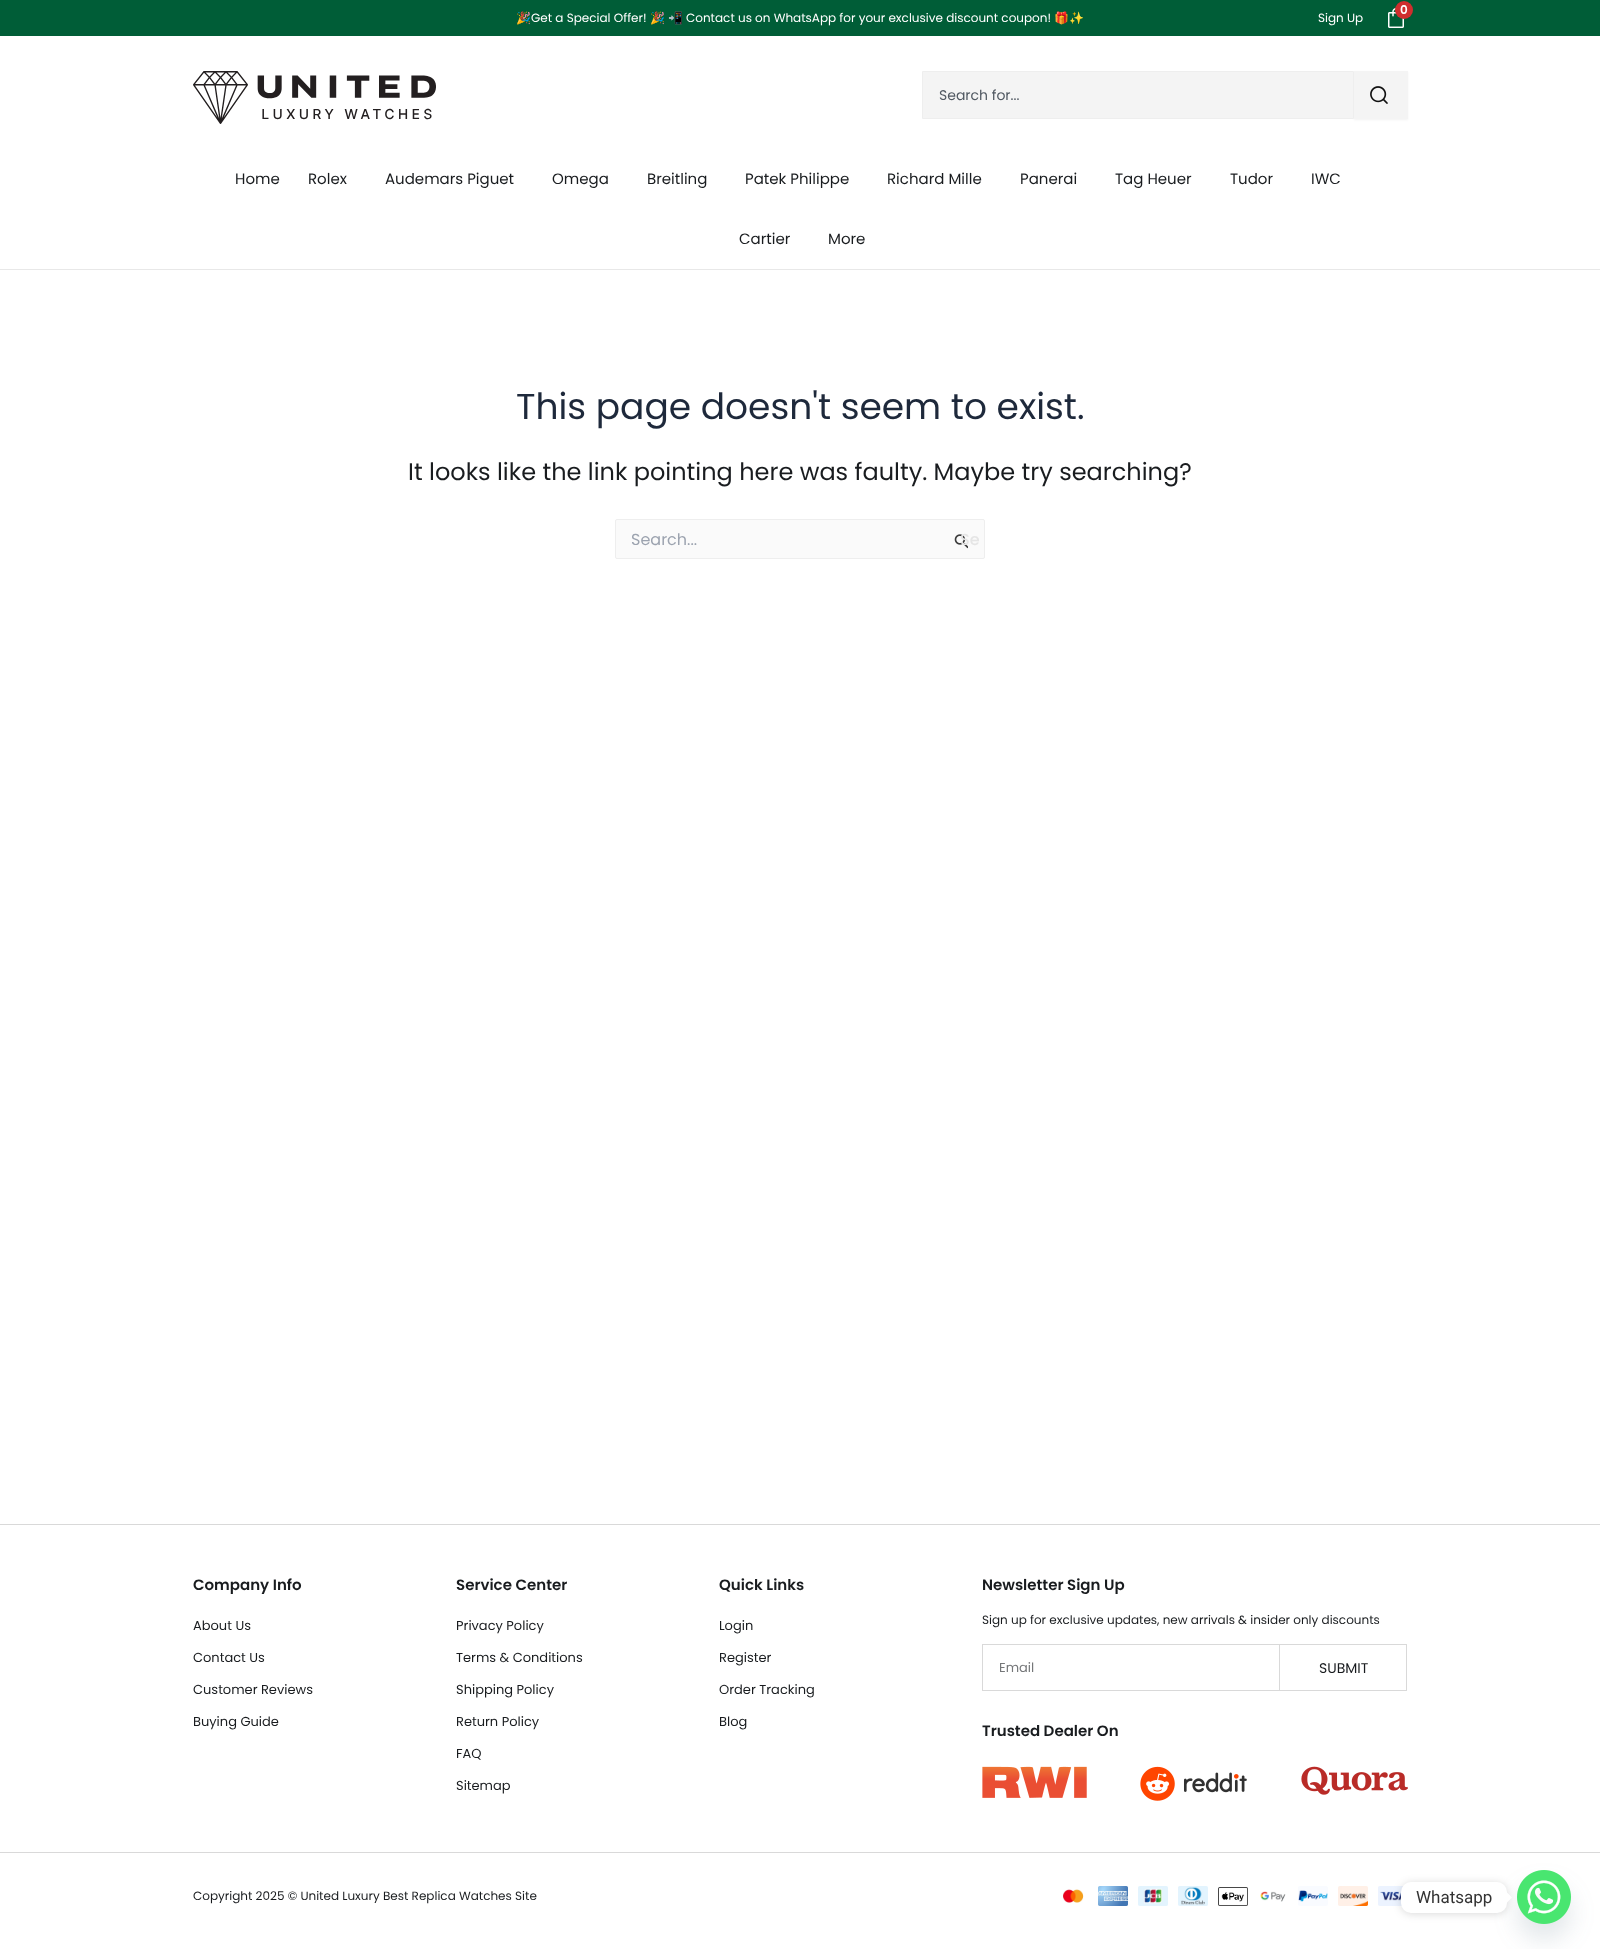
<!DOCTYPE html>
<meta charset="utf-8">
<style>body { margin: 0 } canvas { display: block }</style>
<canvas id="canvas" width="1600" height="1949"></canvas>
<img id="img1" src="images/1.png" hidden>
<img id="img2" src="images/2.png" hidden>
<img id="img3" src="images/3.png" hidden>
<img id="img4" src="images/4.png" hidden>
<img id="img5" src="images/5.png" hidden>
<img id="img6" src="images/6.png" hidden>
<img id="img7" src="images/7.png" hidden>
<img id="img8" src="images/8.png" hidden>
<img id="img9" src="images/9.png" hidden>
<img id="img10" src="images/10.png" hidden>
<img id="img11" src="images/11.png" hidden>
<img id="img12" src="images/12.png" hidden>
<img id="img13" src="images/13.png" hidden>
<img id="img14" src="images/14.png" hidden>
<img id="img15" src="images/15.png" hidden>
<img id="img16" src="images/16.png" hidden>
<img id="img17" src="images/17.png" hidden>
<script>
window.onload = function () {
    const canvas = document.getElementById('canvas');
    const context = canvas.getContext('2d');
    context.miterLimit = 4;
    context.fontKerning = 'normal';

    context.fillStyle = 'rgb(255, 255, 255)';
    context.fillRect(0, 0, 1600, 1949);
    context.fillStyle = 'rgb(0, 93, 55)';
    context.fillRect(0, 0, 1600, 36);
    context.drawImage(document.getElementById('img1'), 1388, 8, 16, 20);
    context.fillStyle = 'rgb(207, 46, 46)';
    context.beginPath();
    context.arc(1404, 10, 9, 0, 2 * Math.PI);
    context.fill();
    context.drawImage(document.getElementById('img2'), 193, 71, 243, 53);
    context.fillStyle = 'rgba(0, 0, 0, 0.05)';
    context.filter = 'blur(1px)';
    context.beginPath();
    context.rect(1354, 72, 54, 48);
    context.fill();
    context.filter = 'none';
    context.fillStyle = 'rgb(244, 244, 244)';
    context.beginPath();
    context.rect(922.5, 71.5, 431, 47);
    context.fill();
    context.strokeStyle = 'rgb(238, 238, 238)';
    context.stroke();
    context.fillRect(1354, 71, 54, 48);
    context.drawImage(document.getElementById('img3'), 1370, 86, 18, 18);
    context.fillStyle = 'rgb(232, 232, 232)';
    context.fillRect(0, 269, 1600, 1);
    context.fillStyle = 'rgb(250, 250, 250)';
    context.beginPath();
    context.roundRect(615.5, 519.5, 369, 39, 1.5);
    context.fill();
    context.stroke();
    context.drawImage(document.getElementById('img4'), 954, 534, 14, 15);
    context.fillStyle = 'rgb(217, 217, 217)';
    context.fillRect(0, 1524, 1600, 1);
    context.strokeStyle = 'rgb(217, 217, 217)';
    context.strokeRect(982.5, 1644.5, 297, 46);
    context.beginPath();
    context.moveTo(1280, 1644);
    context.lineTo(1407, 1644);
    context.lineTo(1406, 1645);
    context.lineTo(1280, 1645);
    context.closePath();
    context.fill();
    context.fillStyle = 'rgba(0, 0, 0, 0.15)';
    context.beginPath();
    context.moveTo(1407, 1644);
    context.lineTo(1407, 1691);
    context.lineTo(1406, 1690);
    context.lineTo(1406, 1645);
    context.closePath();
    context.fill();
    context.beginPath();
    context.moveTo(1407, 1691);
    context.lineTo(1280, 1691);
    context.lineTo(1280, 1690);
    context.lineTo(1406, 1690);
    context.closePath();
    context.fill();
    context.drawImage(document.getElementById('img5'), 982, 1766, 105, 32);
    context.drawImage(document.getElementById('img6'), 1140, 1766, 107, 35);
    context.drawImage(document.getElementById('img7'), 1301, 1766, 107, 29);
    context.fillStyle = 'rgb(217, 217, 217)';
    context.fillRect(0, 1852, 1600, 1);
    context.drawImage(document.getElementById('img8'), 1063, 1889, 21, 14);
    context.drawImage(document.getElementById('img9'), 1098, 1886, 30, 20);
    context.drawImage(document.getElementById('img10'), 1138, 1886, 30, 20);
    context.drawImage(document.getElementById('img11'), 1178, 1886, 30, 20);
    context.drawImage(document.getElementById('img12'), 1218, 1887, 30, 19);
    context.drawImage(document.getElementById('img13'), 1260, 1891, 26, 11);
    context.drawImage(document.getElementById('img14'), 1298, 1886, 30, 20);
    context.drawImage(document.getElementById('img15'), 1338, 1886, 30, 20);
    context.drawImage(document.getElementById('img16'), 1378, 1886, 25, 20);
    context.fillStyle = 'rgba(73, 104, 126, 0.16)';
    context.filter = 'blur(12px)';
    context.beginPath();
    context.roundRect(1517, 1886, 54, 54, 27);
    context.fill();
    context.filter = 'none';
    context.drawImage(document.getElementById('img17'), 1517, 1870, 54, 54);
    context.fillStyle = 'rgba(0, 0, 0, 0.15)';
    context.filter = 'blur(4px)';
    context.beginPath();
    context.roundRect(1401, 1883, 106, 31, 10);
    context.fill();
    context.filter = 'none';
    context.fillStyle = 'rgb(255, 255, 255)';
    context.beginPath();
    context.roundRect(1401, 1882, 106, 31, 10);
    context.fill();
    context.beginPath();
    context.moveTo(1507, 1902.5);
    context.lineTo(1507, 1892.5);
    context.lineTo(1512, 1897.5);
    context.closePath();
    context.fill();
    context.font = '12px Noto Color Emoji';
    context.fillText('🎉', 516, 22);
    context.font = '12px Poppins';
    context.fillText('Get a Special Offer!', 531, 22);
    context.font = '12px Noto Color Emoji';
    context.fillText('🎉', 650, 22);
    context.fillText('📲', 668, 22);
    context.font = '12px Poppins';
    context.fillText('Contact us on WhatsApp for your exclusive discount coupon!', 686, 22);
    context.font = '12px Noto Color Emoji';
    context.fillText('🎁✨', 1054, 22);
    context.font = '600 12px Poppins';
    context.fillText('0', 1400, 14);
    context.font = '12px Poppins';
    context.fillText('Sign Up', 1318, 22);
    context.font = '14px Poppins';
    context.fillStyle = 'rgb(81, 89, 98)';
    context.fillText('Search for...', 939, 100);
    context.font = '15px Poppins';
    context.fillStyle = 'rgb(25, 28, 31)';
    context.fillText('Home', 235, 184);
    context.fillText('Rolex', 308, 184);
    context.fillText('Audemars Piguet', 385, 184);
    context.fillText('Omega', 552, 184);
    context.fillText('Breitling', 647, 184);
    context.fillText('Patek Philippe', 745, 184);
    context.fillText('Richard Mille', 887, 184);
    context.fillText('Panerai', 1020, 184);
    context.fillText('Tag Heuer', 1115, 184);
    context.fillText('Tudor', 1230, 184);
    context.fillText('IWC', 1311, 184);
    context.fillText('Cartier', 739, 244);
    context.fillText('More', 828, 244);
    context.font = '36px Poppins';
    context.fillStyle = 'rgb(30, 41, 59)';
    context.fillText('This page doesn\'t seem to exist.', 516, 419);
    context.font = '24px Poppins';
    context.fillStyle = 'rgb(25, 28, 31)';
    context.fillText('It looks like the link pointing here was faulty. Maybe try searching?', 408, 480);
    context.font = '16px Poppins';
    context.fillStyle = 'rgb(156, 163, 175)';
    context.fillText('Search...', 631, 545);
    context.font = '500 16px Poppins';
    context.fillStyle = 'rgb(229, 229, 229)';
    context.fillText('Se', 960, 545);
    context.font = '600 15px Poppins';
    context.fillStyle = 'rgb(25, 28, 31)';
    context.fillText('Company Info', 193, 1590);
    context.font = '13px Poppins';
    context.fillText('About Us', 193, 1630);
    context.fillText('Contact Us', 193, 1662);
    context.fillText('Customer Reviews', 193, 1694);
    context.fillText('Buying Guide', 193, 1726);
    context.font = '600 15px Poppins';
    context.fillText('Service Center', 456, 1590);
    context.font = '13px Poppins';
    context.fillText('Privacy Policy', 456, 1630);
    context.fillText('Terms & Conditions', 456, 1662);
    context.fillText('Shipping Policy', 456, 1694);
    context.fillText('Return Policy', 456, 1726);
    context.fillText('FAQ', 456, 1758);
    context.fillText('Sitemap', 456, 1790);
    context.font = '600 15px Poppins';
    context.fillText('Quick Links', 719, 1590);
    context.font = '13px Poppins';
    context.fillText('Login', 719, 1630);
    context.fillText('Register', 719, 1662);
    context.fillText('Order Tracking', 719, 1694);
    context.fillText('Blog', 719, 1726);
    context.font = '600 15px Poppins';
    context.fillText('Newsletter Sign Up', 982, 1590);
    context.font = '12px Poppins';
    context.fillText('Sign up for exclusive updates, new arrivals & insider only discounts', 982, 1624);
    context.font = '13px Poppins';
    context.fillStyle = 'rgb(117, 119, 121)';
    context.fillText('Email', 999, 1672);
    context.font = '14px Poppins';
    context.fillStyle = 'rgb(25, 28, 31)';
    context.fillText('SUBMIT', 1319, 1673);
    context.font = '600 15px Poppins';
    context.fillText('Trusted Dealer On', 982, 1736);
    context.font = '12px Poppins';
    context.fillText('Copyright 2025 © United Luxury Best Replica Watches Site', 193, 1900);
    context.font = '17px Roboto';
    context.fillStyle = 'rgb(51, 51, 51)';
    context.fillText('Whatsapp', 1416, 1903);
};
</script>
